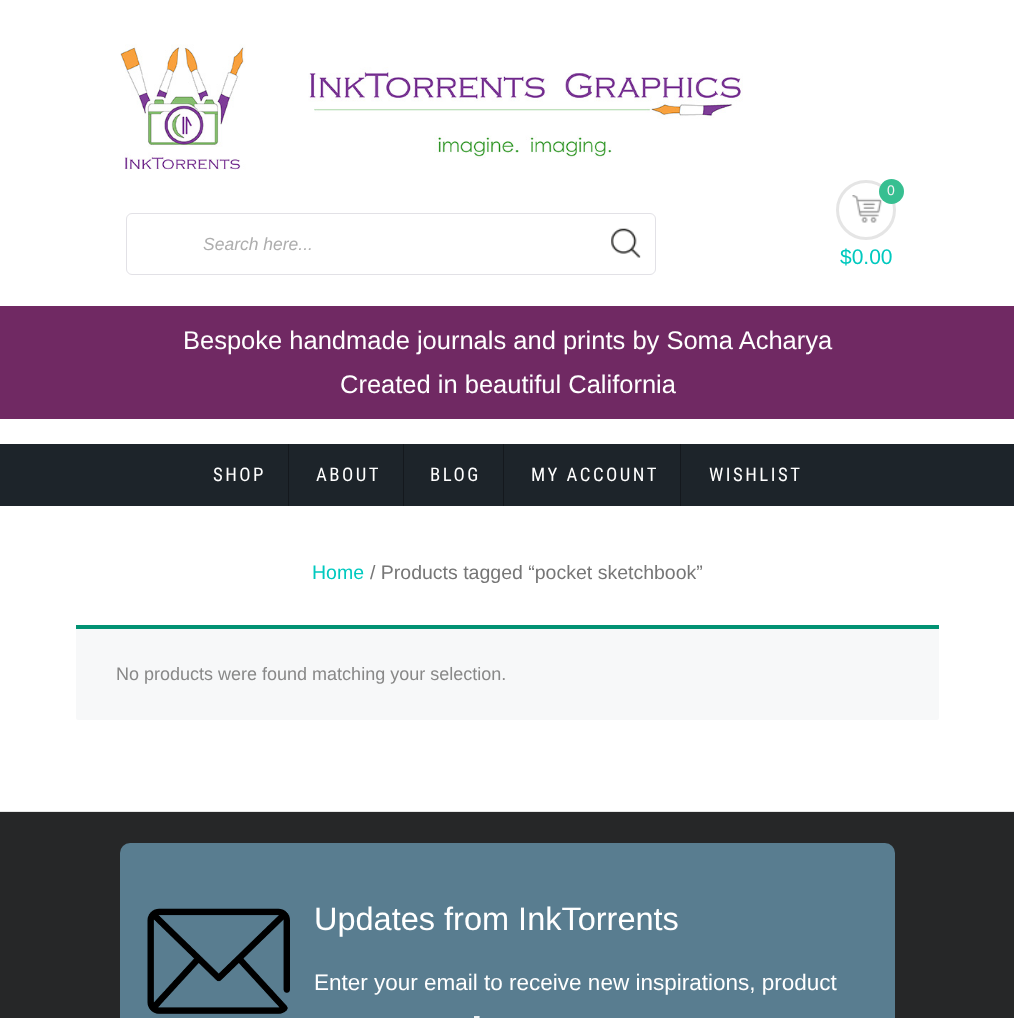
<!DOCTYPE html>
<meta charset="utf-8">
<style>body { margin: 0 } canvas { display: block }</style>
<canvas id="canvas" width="1014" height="1018"></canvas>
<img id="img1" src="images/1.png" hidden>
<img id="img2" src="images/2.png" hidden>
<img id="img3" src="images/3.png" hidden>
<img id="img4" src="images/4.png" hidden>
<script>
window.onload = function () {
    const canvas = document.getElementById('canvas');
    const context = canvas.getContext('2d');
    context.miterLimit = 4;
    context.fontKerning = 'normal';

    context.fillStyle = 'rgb(255, 255, 255)';
    context.fillRect(0, 0, 1014, 1018);
    context.drawImage(document.getElementById('img1'), 120, 44, 623, 126);
    context.beginPath();
    context.roundRect(126.5, 213.5, 529, 61, 5.5);
    context.strokeStyle = 'rgb(226, 225, 230)';
    context.stroke();
    context.drawImage(document.getElementById('img2'), 611, 228, 30, 30);
    context.beginPath();
    context.arc(866, 210, 28.5, 0, 2 * Math.PI);
    context.strokeStyle = 'rgb(229, 229, 229)';
    context.lineWidth = 3;
    context.stroke();
    context.drawImage(document.getElementById('img3'), 852, 195, 30, 28);
    context.fillStyle = 'rgb(55, 191, 145)';
    context.beginPath();
    context.arc(891.5, 191.5, 12.5, 0, 2 * Math.PI);
    context.fill();
    context.fillStyle = 'rgb(112, 41, 99)';
    context.fillRect(0, 306, 1014, 113);
    context.fillStyle = 'rgb(29, 36, 42)';
    context.fillRect(0, 444, 1014, 62);
    context.fillStyle = 'rgb(20, 24, 29)';
    context.fillRect(288, 444, 1, 62);
    context.fillRect(403, 444, 1, 62);
    context.fillRect(503, 444, 1, 62);
    context.fillRect(680, 444, 1, 62);
    context.fillStyle = 'rgb(247, 248, 249)';
    context.beginPath();
    context.roundRect(76, 625, 863, 95, [0, 0, 2.5, 2.5]);
    context.fill();
    context.fillStyle = 'rgb(1, 146, 115)';
    context.fillRect(76, 625, 863, 4);
    context.fillStyle = 'rgb(38, 39, 40)';
    context.fillRect(0, 812, 1014, 206);
    context.fillStyle = 'rgb(229, 229, 229)';
    context.fillRect(0, 811, 1014, 1);
    context.fillStyle = 'rgb(89, 125, 144)';
    context.beginPath();
    context.roundRect(120, 843, 775, 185, 10);
    context.fill();
    context.drawImage(document.getElementById('img4'), 147, 908, 143, 106);
    context.font = 'italic 17.5px Liberation Sans';
    context.fillStyle = 'rgb(174, 174, 174)';
    context.fillText('Search here...', 203, 250);
    context.font = '14px Liberation Sans';
    context.fillStyle = 'rgb(244, 244, 244)';
    context.fillText('0', 887, 195);
    context.font = '21px Liberation Sans';
    context.fillStyle = 'rgb(0, 201, 191)';
    context.fillText('$0.00', 840, 264);
    context.font = '25.5px Liberation Sans';
    context.fillStyle = 'rgb(255, 255, 255)';
    context.fillText('Bespoke handmade journals and prints by Soma Acharya', 183, 349);
    context.fillText('Created in beautiful California', 340, 393);
    context.letterSpacing = '2.5px';
    context.font = '18.75px Roboto Condensed';
    context.fillText('SHOP', 213, 481);
    context.fillText('ABOUT', 316, 481);
    context.fillText('BLOG', 430, 481);
    context.fillText('MY ACCOUNT', 531, 481);
    context.fillText('WISHLIST', 709, 481);
    context.letterSpacing = '0px';
    context.font = '19.5px Liberation Sans';
    context.fillStyle = 'rgb(0, 201, 191)';
    context.fillText('Home', 312, 579);
    context.fillStyle = 'rgb(118, 118, 118)';
    context.fillText('/ Products tagged “pocket sketchbook”', 370, 579);
    context.font = '18px Liberation Sans';
    context.fillStyle = 'rgb(136, 136, 136)';
    context.fillText('No products were found matching your selection.', 116, 680);
    context.font = '32.5px Liberation Sans';
    context.fillStyle = 'rgb(255, 255, 255)';
    context.fillText('Updates from InkTorrents', 314, 930);
    context.font = '22.5px Liberation Sans';
    context.fillText('Enter your email to receive new inspirations, product', 314, 990);
    context.fillText('-', 473, 1023);
};
</script>
